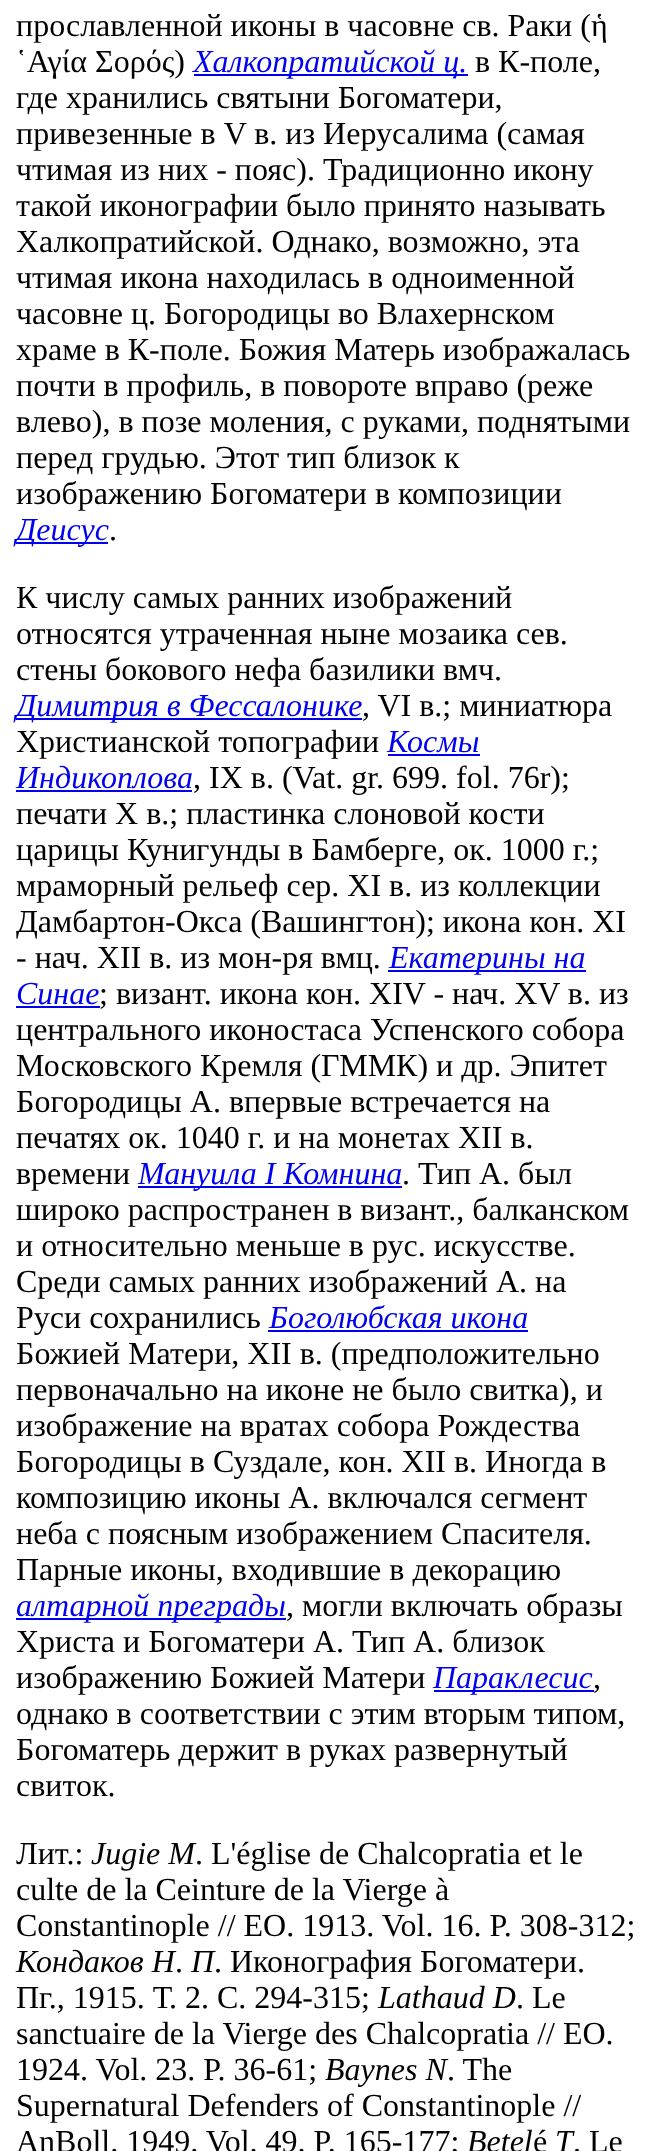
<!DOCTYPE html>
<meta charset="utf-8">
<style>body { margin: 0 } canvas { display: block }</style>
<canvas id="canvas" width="651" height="2151"></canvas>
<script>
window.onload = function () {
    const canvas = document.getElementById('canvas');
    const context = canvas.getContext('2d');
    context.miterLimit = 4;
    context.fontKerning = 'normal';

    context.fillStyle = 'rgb(255, 255, 255)';
    context.fillRect(0, 0, 651, 2151);
    context.fillStyle = 'rgb(0, 0, 238)';
    context.fillRect(194, 74, 274, 2);
    context.fillRect(16, 542, 92, 2);
    context.fillRect(16, 718, 346, 2);
    context.fillRect(388, 754, 92, 2);
    context.fillRect(16, 790, 176, 2);
    context.fillRect(388, 970, 198, 2);
    context.fillRect(16, 1006, 84, 2);
    context.fillRect(138, 1186, 264, 2);
    context.fillRect(268, 1330, 260, 2);
    context.fillRect(16, 1618, 270, 2);
    context.fillRect(434, 1690, 160, 2);
    context.font = '32px Liberation Serif';
    context.fillStyle = 'rgb(0, 0, 0)';
    context.fillText('прославленной иконы в часовне св. Раки (ἡ', 16, 36);
    context.fillText('῾Αγία Σορός)', 16, 72);
    context.font = 'italic 32px Liberation Serif';
    context.fillStyle = 'rgb(0, 0, 238)';
    context.fillText('Халкопратийской ц.', 193, 72);
    context.font = '32px Liberation Serif';
    context.fillStyle = 'rgb(0, 0, 0)';
    context.fillText('в К-поле,', 475, 72);
    context.fillText('где хранились святыни Богоматери,', 16, 108);
    context.fillText('привезенные в V в. из Иерусалима (самая', 16, 144);
    context.fillText('чтимая из них - пояс). Традиционно икону', 16, 180);
    context.fillText('такой иконографии было принято называть', 16, 216);
    context.fillText('Халкопратийской. Однако, возможно, эта', 16, 252);
    context.fillText('чтимая икона находилась в одноименной', 16, 288);
    context.fillText('часовне ц. Богородицы во Влахернском', 16, 324);
    context.fillText('храме в К-поле. Божия Матерь изображалась', 16, 360);
    context.fillText('почти в профиль, в повороте вправо (реже', 16, 396);
    context.fillText('влево), в позе моления, с руками, поднятыми', 16, 432);
    context.fillText('перед грудью. Этот тип близок к', 16, 468);
    context.fillText('изображению Богоматери в композиции', 16, 504);
    context.font = 'italic 32px Liberation Serif';
    context.fillStyle = 'rgb(0, 0, 238)';
    context.fillText('Деисус', 16, 540);
    context.font = '32px Liberation Serif';
    context.fillStyle = 'rgb(0, 0, 0)';
    context.fillText('.', 109, 540);
    context.fillText('К числу самых ранних изображений', 16, 608);
    context.fillText('относятся утраченная ныне мозаика сев.', 16, 644);
    context.fillText('стены бокового нефа базилики вмч.', 16, 680);
    context.font = 'italic 32px Liberation Serif';
    context.fillStyle = 'rgb(0, 0, 238)';
    context.fillText('Димитрия в Фессалонике', 16, 716);
    context.font = '32px Liberation Serif';
    context.fillStyle = 'rgb(0, 0, 0)';
    context.fillText(', VI в.; миниатюра', 362, 716);
    context.fillText('Христианской топографии', 16, 752);
    context.font = 'italic 32px Liberation Serif';
    context.fillStyle = 'rgb(0, 0, 238)';
    context.fillText('Космы', 387, 752);
    context.fillText('Индикоплова', 16, 788);
    context.font = '32px Liberation Serif';
    context.fillStyle = 'rgb(0, 0, 0)';
    context.fillText(', IX в. (Vat. gr. 699. fol. 76r);', 193, 788);
    context.fillText('печати Х в.; пластинка слоновой кости', 16, 824);
    context.fillText('царицы Кунигунды в Бамберге, ок. 1000 г.;', 16, 860);
    context.fillText('мраморный рельеф сер. XI в. из коллекции', 16, 896);
    context.fillText('Дамбартон-Окса (Вашингтон); икона кон. XI', 16, 932);
    context.fillText('- нач. ХII в. из мон-ря вмц.', 16, 968);
    context.font = 'italic 32px Liberation Serif';
    context.fillStyle = 'rgb(0, 0, 238)';
    context.fillText('Екатерины на', 389, 968);
    context.fillText('Синае', 16, 1004);
    context.font = '32px Liberation Serif';
    context.fillStyle = 'rgb(0, 0, 0)';
    context.fillText('; визант. икона кон. XIV - нач. XV в. из', 99, 1004);
    context.fillText('центрального иконостаса Успенского собора', 16, 1040);
    context.fillText('Московского Кремля (ГММК) и др. Эпитет', 16, 1076);
    context.fillText('Богородицы А. впервые встречается на', 16, 1112);
    context.fillText('печатях ок. 1040 г. и на монетах ХII в.', 16, 1148);
    context.fillText('времени', 16, 1184);
    context.font = 'italic 32px Liberation Serif';
    context.fillStyle = 'rgb(0, 0, 238)';
    context.fillText('Мануила I Комнина', 138, 1184);
    context.font = '32px Liberation Serif';
    context.fillStyle = 'rgb(0, 0, 0)';
    context.fillText('. Тип А. был', 402, 1184);
    context.fillText('широко распространен в визант., балканском', 16, 1220);
    context.fillText('и относительно меньше в рус. искусстве.', 16, 1256);
    context.fillText('Среди самых ранних изображений А. на', 16, 1292);
    context.fillText('Руси сохранились', 16, 1328);
    context.font = 'italic 32px Liberation Serif';
    context.fillStyle = 'rgb(0, 0, 238)';
    context.fillText('Боголюбская икона', 269, 1328);
    context.font = '32px Liberation Serif';
    context.fillStyle = 'rgb(0, 0, 0)';
    context.fillText('Божией Матери, ХII в. (предположительно', 16, 1364);
    context.fillText('первоначально на иконе не было свитка), и', 16, 1400);
    context.fillText('изображение на вратах собора Рождества', 16, 1436);
    context.fillText('Богородицы в Суздале, кон. ХII в. Иногда в', 16, 1472);
    context.fillText('композицию иконы А. включался сегмент', 16, 1508);
    context.fillText('неба с поясным изображением Спасителя.', 16, 1544);
    context.fillText('Парные иконы, входившие в декорацию', 16, 1580);
    context.font = 'italic 32px Liberation Serif';
    context.fillStyle = 'rgb(0, 0, 238)';
    context.fillText('алтарной преграды', 16, 1616);
    context.font = '32px Liberation Serif';
    context.fillStyle = 'rgb(0, 0, 0)';
    context.fillText(', могли включать образы', 286, 1616);
    context.fillText('Христа и Богоматери А. Тип А. близок', 16, 1652);
    context.fillText('изображению Божией Матери', 16, 1688);
    context.font = 'italic 32px Liberation Serif';
    context.fillStyle = 'rgb(0, 0, 238)';
    context.fillText('Параклесис', 433, 1688);
    context.font = '32px Liberation Serif';
    context.fillStyle = 'rgb(0, 0, 0)';
    context.fillText(',', 593, 1688);
    context.fillText('однако в соответствии с этим вторым типом,', 16, 1724);
    context.fillText('Богоматерь держит в руках развернутый', 16, 1760);
    context.fillText('свиток.', 16, 1796);
    context.fillText('Лит.:', 16, 1864);
    context.font = 'italic 32px Liberation Serif';
    context.fillText('Jugie M', 91, 1864);
    context.font = '32px Liberation Serif';
    context.fillText('. L\'église de Chalcopratia et le', 195, 1864);
    context.fillText('culte de la Ceinture de la Vierge à', 16, 1900);
    context.fillText('Constantinople // EO. 1913. Vol. 16. P. 308-312;', 16, 1936);
    context.font = 'italic 32px Liberation Serif';
    context.fillText('Кондаков H', 16, 1972);
    context.font = '32px Liberation Serif';
    context.fillText('.', 175, 1972);
    context.font = 'italic 32px Liberation Serif';
    context.fillText('П', 191, 1972);
    context.font = '32px Liberation Serif';
    context.fillText('. Иконография Богоматери.', 214, 1972);
    context.fillText('Пг., 1915. Т. 2. С. 294-315;', 16, 2008);
    context.font = 'italic 32px Liberation Serif';
    context.fillText('Lathaud D', 378, 2008);
    context.font = '32px Liberation Serif';
    context.fillText('. Le', 516, 2008);
    context.fillText('sanctuaire de la Vierge des Chalcopratia // EO.', 16, 2044);
    context.fillText('1924. Vol. 23. P. 36-61;', 16, 2080);
    context.font = 'italic 32px Liberation Serif';
    context.fillText('Baynes N', 325, 2080);
    context.font = '32px Liberation Serif';
    context.fillText('. The', 447, 2080);
    context.fillText('Supernatural Defenders of Constantinople //', 16, 2116);
    context.fillText('AnBoll. 1949. Vol. 49. P. 165-177;', 16, 2152);
    context.font = 'italic 32px Liberation Serif';
    context.fillText('Betel', 467, 2152);
    context.font = '32px Liberation Serif';
    context.fillText('é', 533, 2152);
    context.font = 'italic 32px Liberation Serif';
    context.fillText('T', 555, 2152);
    context.font = '32px Liberation Serif';
    context.fillText('. Le', 573, 2152);
};
</script>
